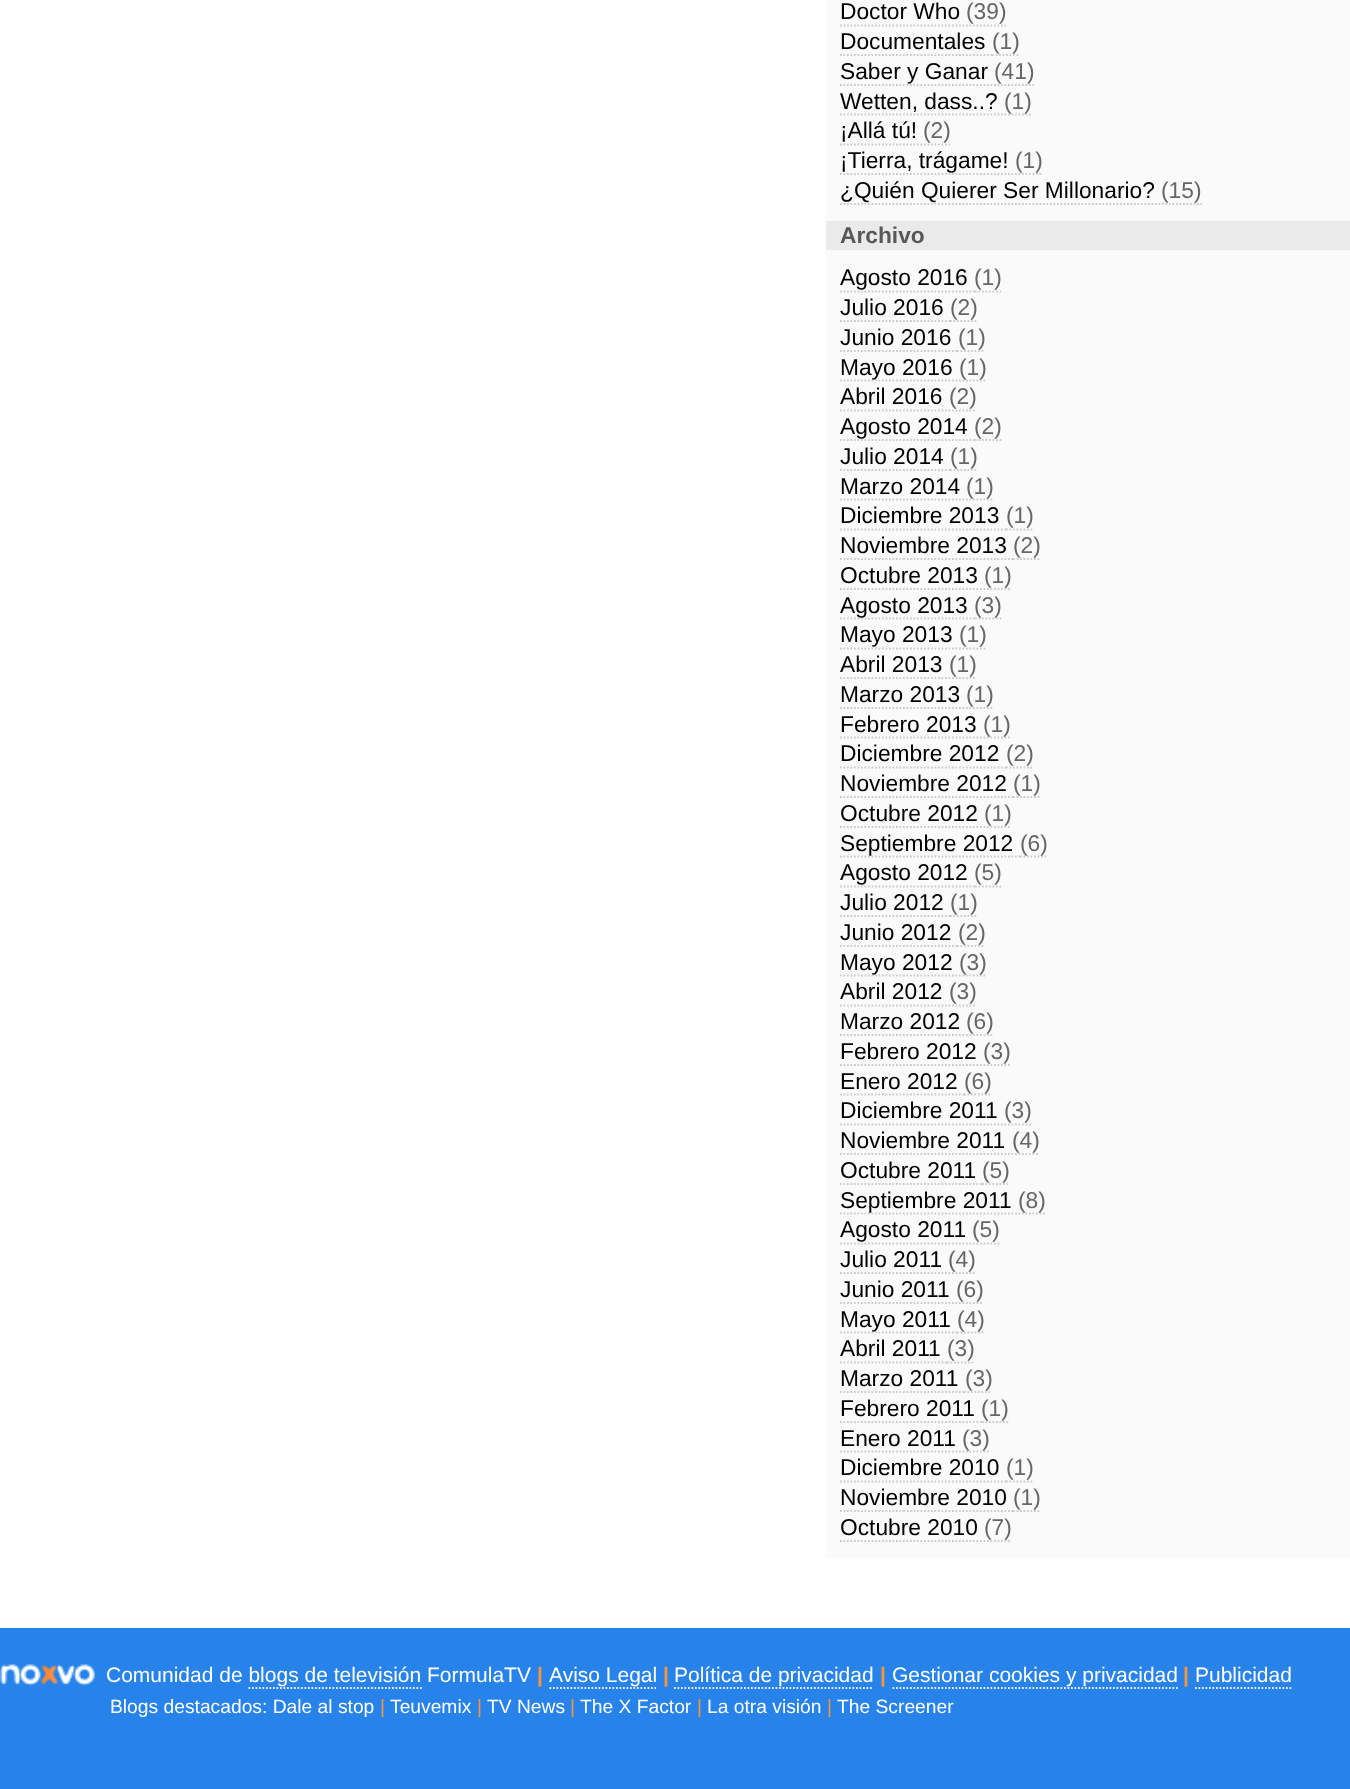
<!DOCTYPE html>
<meta charset="utf-8">
<style>body { margin: 0 } canvas { display: block }</style>
<canvas id="canvas" width="1350" height="1789"></canvas>
<img id="img1" src="images/1.png" hidden>
<script>
window.onload = function () {
    const canvas = document.getElementById('canvas');
    const context = canvas.getContext('2d');
    context.miterLimit = 4;
    context.fontKerning = 'normal';

    context.fillStyle = 'rgb(255, 255, 255)';
    context.fillRect(0, 0, 1350, 1789);
    context.fillStyle = 'rgb(250, 250, 250)';
    context.fillRect(826, 0, 524, 221);
    context.beginPath();
    context.moveTo(840, 25.5);
    context.lineTo(966, 25.5);
    context.strokeStyle = 'rgb(204, 204, 204)';
    context.lineWidth = 1.8;
    context.setLineDash([1.75, 1.75]);
    context.stroke();
    context.beginPath();
    context.moveTo(966, 25.5);
    context.lineTo(1006, 25.5);
    context.stroke();
    context.beginPath();
    context.moveTo(840, 55);
    context.lineTo(992, 55);
    context.stroke();
    context.beginPath();
    context.moveTo(992, 55);
    context.lineTo(1020, 55);
    context.stroke();
    context.beginPath();
    context.moveTo(840, 85);
    context.lineTo(994, 85);
    context.stroke();
    context.beginPath();
    context.moveTo(994, 85);
    context.lineTo(1034, 85);
    context.stroke();
    context.beginPath();
    context.moveTo(840, 114.5);
    context.lineTo(1004.5, 114.5);
    context.stroke();
    context.beginPath();
    context.moveTo(1004.5, 114.5);
    context.lineTo(1032.5, 114.5);
    context.stroke();
    context.beginPath();
    context.moveTo(840, 144.5);
    context.lineTo(924, 144.5);
    context.stroke();
    context.beginPath();
    context.moveTo(924, 144.5);
    context.lineTo(952, 144.5);
    context.stroke();
    context.beginPath();
    context.moveTo(840, 174);
    context.lineTo(1015, 174);
    context.stroke();
    context.beginPath();
    context.moveTo(1015, 174);
    context.lineTo(1043, 174);
    context.stroke();
    context.beginPath();
    context.moveTo(840, 204);
    context.lineTo(1162, 204);
    context.stroke();
    context.beginPath();
    context.moveTo(1162, 204);
    context.lineTo(1202, 204);
    context.stroke();
    context.fillStyle = 'rgb(234, 234, 234)';
    context.fillRect(826, 221, 524, 29);
    context.fillStyle = 'rgb(250, 250, 250)';
    context.fillRect(826, 250, 524, 1308);
    context.beginPath();
    context.moveTo(840, 291.5);
    context.lineTo(975, 291.5);
    context.stroke();
    context.beginPath();
    context.moveTo(975, 291.5);
    context.lineTo(1003, 291.5);
    context.stroke();
    context.beginPath();
    context.moveTo(840, 321);
    context.lineTo(950, 321);
    context.stroke();
    context.beginPath();
    context.moveTo(950, 321);
    context.lineTo(978, 321);
    context.stroke();
    context.beginPath();
    context.moveTo(840, 351);
    context.lineTo(957, 351);
    context.stroke();
    context.beginPath();
    context.moveTo(957, 351);
    context.lineTo(985, 351);
    context.stroke();
    context.beginPath();
    context.moveTo(840, 380.5);
    context.lineTo(959, 380.5);
    context.stroke();
    context.beginPath();
    context.moveTo(959, 380.5);
    context.lineTo(987, 380.5);
    context.stroke();
    context.beginPath();
    context.moveTo(840, 410.5);
    context.lineTo(948.5, 410.5);
    context.stroke();
    context.beginPath();
    context.moveTo(948.5, 410.5);
    context.lineTo(976.5, 410.5);
    context.stroke();
    context.beginPath();
    context.moveTo(840, 440);
    context.lineTo(975, 440);
    context.stroke();
    context.beginPath();
    context.moveTo(975, 440);
    context.lineTo(1003, 440);
    context.stroke();
    context.beginPath();
    context.moveTo(840, 470);
    context.lineTo(950, 470);
    context.stroke();
    context.beginPath();
    context.moveTo(950, 470);
    context.lineTo(978, 470);
    context.stroke();
    context.beginPath();
    context.moveTo(840, 499.5);
    context.lineTo(966, 499.5);
    context.stroke();
    context.beginPath();
    context.moveTo(966, 499.5);
    context.lineTo(994, 499.5);
    context.stroke();
    context.beginPath();
    context.moveTo(840, 529.5);
    context.lineTo(1006, 529.5);
    context.stroke();
    context.beginPath();
    context.moveTo(1006, 529.5);
    context.lineTo(1034, 529.5);
    context.stroke();
    context.beginPath();
    context.moveTo(840, 559);
    context.lineTo(1013, 559);
    context.stroke();
    context.beginPath();
    context.moveTo(1013, 559);
    context.lineTo(1041, 559);
    context.stroke();
    context.beginPath();
    context.moveTo(840, 589);
    context.lineTo(983.5, 589);
    context.stroke();
    context.beginPath();
    context.moveTo(983.5, 589);
    context.lineTo(1011.5, 589);
    context.stroke();
    context.beginPath();
    context.moveTo(840, 618.5);
    context.lineTo(975, 618.5);
    context.stroke();
    context.beginPath();
    context.moveTo(975, 618.5);
    context.lineTo(1003, 618.5);
    context.stroke();
    context.beginPath();
    context.moveTo(840, 648.5);
    context.lineTo(959, 648.5);
    context.stroke();
    context.beginPath();
    context.moveTo(959, 648.5);
    context.lineTo(987, 648.5);
    context.stroke();
    context.beginPath();
    context.moveTo(840, 678);
    context.lineTo(948.5, 678);
    context.stroke();
    context.beginPath();
    context.moveTo(948.5, 678);
    context.lineTo(976.5, 678);
    context.stroke();
    context.beginPath();
    context.moveTo(840, 708);
    context.lineTo(966, 708);
    context.stroke();
    context.beginPath();
    context.moveTo(966, 708);
    context.lineTo(994, 708);
    context.stroke();
    context.beginPath();
    context.moveTo(840, 737.5);
    context.lineTo(983.5, 737.5);
    context.stroke();
    context.beginPath();
    context.moveTo(983.5, 737.5);
    context.lineTo(1011.5, 737.5);
    context.stroke();
    context.beginPath();
    context.moveTo(840, 767.5);
    context.lineTo(1006, 767.5);
    context.stroke();
    context.beginPath();
    context.moveTo(1006, 767.5);
    context.lineTo(1034, 767.5);
    context.stroke();
    context.beginPath();
    context.moveTo(840, 797);
    context.lineTo(1013, 797);
    context.stroke();
    context.beginPath();
    context.moveTo(1013, 797);
    context.lineTo(1041, 797);
    context.stroke();
    context.beginPath();
    context.moveTo(840, 827);
    context.lineTo(983.5, 827);
    context.stroke();
    context.beginPath();
    context.moveTo(983.5, 827);
    context.lineTo(1011.5, 827);
    context.stroke();
    context.beginPath();
    context.moveTo(840, 856.5);
    context.lineTo(1020, 856.5);
    context.stroke();
    context.beginPath();
    context.moveTo(1020, 856.5);
    context.lineTo(1048, 856.5);
    context.stroke();
    context.beginPath();
    context.moveTo(840, 886.5);
    context.lineTo(975, 886.5);
    context.stroke();
    context.beginPath();
    context.moveTo(975, 886.5);
    context.lineTo(1003, 886.5);
    context.stroke();
    context.beginPath();
    context.moveTo(840, 916);
    context.lineTo(950, 916);
    context.stroke();
    context.beginPath();
    context.moveTo(950, 916);
    context.lineTo(978, 916);
    context.stroke();
    context.beginPath();
    context.moveTo(840, 946);
    context.lineTo(957, 946);
    context.stroke();
    context.beginPath();
    context.moveTo(957, 946);
    context.lineTo(985, 946);
    context.stroke();
    context.beginPath();
    context.moveTo(840, 975.5);
    context.lineTo(959, 975.5);
    context.stroke();
    context.beginPath();
    context.moveTo(959, 975.5);
    context.lineTo(987, 975.5);
    context.stroke();
    context.beginPath();
    context.moveTo(840, 1005.5);
    context.lineTo(948.5, 1005.5);
    context.stroke();
    context.beginPath();
    context.moveTo(948.5, 1005.5);
    context.lineTo(976.5, 1005.5);
    context.stroke();
    context.beginPath();
    context.moveTo(840, 1035);
    context.lineTo(966, 1035);
    context.stroke();
    context.beginPath();
    context.moveTo(966, 1035);
    context.lineTo(994, 1035);
    context.stroke();
    context.beginPath();
    context.moveTo(840, 1065);
    context.lineTo(983.5, 1065);
    context.stroke();
    context.beginPath();
    context.moveTo(983.5, 1065);
    context.lineTo(1011.5, 1065);
    context.stroke();
    context.beginPath();
    context.moveTo(840, 1094.5);
    context.lineTo(964, 1094.5);
    context.stroke();
    context.beginPath();
    context.moveTo(964, 1094.5);
    context.lineTo(992, 1094.5);
    context.stroke();
    context.beginPath();
    context.moveTo(840, 1124.5);
    context.lineTo(1004.5, 1124.5);
    context.stroke();
    context.beginPath();
    context.moveTo(1004.5, 1124.5);
    context.lineTo(1032.5, 1124.5);
    context.stroke();
    context.beginPath();
    context.moveTo(840, 1154);
    context.lineTo(1011.5, 1154);
    context.stroke();
    context.beginPath();
    context.moveTo(1011.5, 1154);
    context.lineTo(1039.5, 1154);
    context.stroke();
    context.beginPath();
    context.moveTo(840, 1184);
    context.lineTo(982, 1184);
    context.stroke();
    context.beginPath();
    context.moveTo(982, 1184);
    context.lineTo(1010, 1184);
    context.stroke();
    context.beginPath();
    context.moveTo(840, 1213.5);
    context.lineTo(1018.5, 1213.5);
    context.stroke();
    context.beginPath();
    context.moveTo(1018.5, 1213.5);
    context.lineTo(1046.5, 1213.5);
    context.stroke();
    context.beginPath();
    context.moveTo(840, 1243.5);
    context.lineTo(973, 1243.5);
    context.stroke();
    context.beginPath();
    context.moveTo(973, 1243.5);
    context.lineTo(1001, 1243.5);
    context.stroke();
    context.beginPath();
    context.moveTo(840, 1273);
    context.lineTo(948.5, 1273);
    context.stroke();
    context.beginPath();
    context.moveTo(948.5, 1273);
    context.lineTo(976.5, 1273);
    context.stroke();
    context.beginPath();
    context.moveTo(840, 1303);
    context.lineTo(955.5, 1303);
    context.stroke();
    context.beginPath();
    context.moveTo(955.5, 1303);
    context.lineTo(983.5, 1303);
    context.stroke();
    context.beginPath();
    context.moveTo(840, 1332.5);
    context.lineTo(957, 1332.5);
    context.stroke();
    context.beginPath();
    context.moveTo(957, 1332.5);
    context.lineTo(985, 1332.5);
    context.stroke();
    context.beginPath();
    context.moveTo(840, 1362.5);
    context.lineTo(947, 1362.5);
    context.stroke();
    context.beginPath();
    context.moveTo(947, 1362.5);
    context.lineTo(975, 1362.5);
    context.stroke();
    context.beginPath();
    context.moveTo(840, 1392);
    context.lineTo(964, 1392);
    context.stroke();
    context.beginPath();
    context.moveTo(964, 1392);
    context.lineTo(992, 1392);
    context.stroke();
    context.beginPath();
    context.moveTo(840, 1422);
    context.lineTo(982, 1422);
    context.stroke();
    context.beginPath();
    context.moveTo(982, 1422);
    context.lineTo(1010, 1422);
    context.stroke();
    context.beginPath();
    context.moveTo(840, 1451.5);
    context.lineTo(962.5, 1451.5);
    context.stroke();
    context.beginPath();
    context.moveTo(962.5, 1451.5);
    context.lineTo(990.5, 1451.5);
    context.stroke();
    context.beginPath();
    context.moveTo(840, 1481.5);
    context.lineTo(1006, 1481.5);
    context.stroke();
    context.beginPath();
    context.moveTo(1006, 1481.5);
    context.lineTo(1034, 1481.5);
    context.stroke();
    context.beginPath();
    context.moveTo(840, 1511);
    context.lineTo(1013, 1511);
    context.stroke();
    context.beginPath();
    context.moveTo(1013, 1511);
    context.lineTo(1041, 1511);
    context.stroke();
    context.beginPath();
    context.moveTo(840, 1541);
    context.lineTo(983.5, 1541);
    context.stroke();
    context.beginPath();
    context.moveTo(983.5, 1541);
    context.lineTo(1011.5, 1541);
    context.stroke();
    context.fillStyle = 'rgb(39, 131, 234)';
    context.fillRect(0, 1628, 1350, 161);
    context.drawImage(document.getElementById('img1'), 0, 1664, 95, 22);
    context.beginPath();
    context.moveTo(248.5, 1688);
    context.lineTo(422, 1688);
    context.strokeStyle = 'rgb(238, 238, 238)';
    context.stroke();
    context.beginPath();
    context.moveTo(549.5, 1688);
    context.lineTo(656, 1688);
    context.stroke();
    context.beginPath();
    context.moveTo(674, 1688);
    context.lineTo(873, 1688);
    context.stroke();
    context.beginPath();
    context.moveTo(892.5, 1688);
    context.lineTo(1178, 1688);
    context.stroke();
    context.beginPath();
    context.moveTo(1195, 1688);
    context.lineTo(1291.5, 1688);
    context.stroke();
    context.font = '22.75px Liberation Sans';
    context.fillStyle = 'rgb(0, 0, 0)';
    context.fillText('Doctor Who', 840, 19);
    context.fillStyle = 'rgb(102, 102, 102)';
    context.fillText('(39)', 966, 19);
    context.fillStyle = 'rgb(0, 0, 0)';
    context.fillText('Documentales', 840, 49);
    context.fillStyle = 'rgb(102, 102, 102)';
    context.fillText('(1)', 992, 49);
    context.fillStyle = 'rgb(0, 0, 0)';
    context.fillText('Saber y Ganar', 840, 79);
    context.fillStyle = 'rgb(102, 102, 102)';
    context.fillText('(41)', 994, 79);
    context.fillStyle = 'rgb(0, 0, 0)';
    context.fillText('Wetten, dass..?', 840, 109);
    context.fillStyle = 'rgb(102, 102, 102)';
    context.fillText('(1)', 1004, 109);
    context.fillStyle = 'rgb(0, 0, 0)';
    context.fillText('¡Allá tú!', 840, 138);
    context.fillStyle = 'rgb(102, 102, 102)';
    context.fillText('(2)', 923, 138);
    context.fillStyle = 'rgb(0, 0, 0)';
    context.fillText('¡Tierra, trágame!', 840, 168);
    context.fillStyle = 'rgb(102, 102, 102)';
    context.fillText('(1)', 1015, 168);
    context.fillStyle = 'rgb(0, 0, 0)';
    context.fillText('¿Quién Quierer Ser Millonario?', 840, 198);
    context.fillStyle = 'rgb(102, 102, 102)';
    context.fillText('(15)', 1161, 198);
    context.font = 'bold 22.75px Liberation Sans';
    context.fillStyle = 'rgb(88, 88, 88)';
    context.fillText('Archivo', 840, 243);
    context.font = '22.75px Liberation Sans';
    context.fillStyle = 'rgb(0, 0, 0)';
    context.fillText('Agosto 2016', 840, 285);
    context.fillStyle = 'rgb(102, 102, 102)';
    context.fillText('(1)', 974, 285);
    context.fillStyle = 'rgb(0, 0, 0)';
    context.fillText('Julio 2016', 840, 315);
    context.fillStyle = 'rgb(102, 102, 102)';
    context.fillText('(2)', 950, 315);
    context.fillStyle = 'rgb(0, 0, 0)';
    context.fillText('Junio 2016', 840, 345);
    context.fillStyle = 'rgb(102, 102, 102)';
    context.fillText('(1)', 958, 345);
    context.fillStyle = 'rgb(0, 0, 0)';
    context.fillText('Mayo 2016', 840, 375);
    context.fillStyle = 'rgb(102, 102, 102)';
    context.fillText('(1)', 959, 375);
    context.fillStyle = 'rgb(0, 0, 0)';
    context.fillText('Abril 2016', 840, 404);
    context.fillStyle = 'rgb(102, 102, 102)';
    context.fillText('(2)', 949, 404);
    context.fillStyle = 'rgb(0, 0, 0)';
    context.fillText('Agosto 2014', 840, 434);
    context.fillStyle = 'rgb(102, 102, 102)';
    context.fillText('(2)', 974, 434);
    context.fillStyle = 'rgb(0, 0, 0)';
    context.fillText('Julio 2014', 840, 464);
    context.fillStyle = 'rgb(102, 102, 102)';
    context.fillText('(1)', 950, 464);
    context.fillStyle = 'rgb(0, 0, 0)';
    context.fillText('Marzo 2014', 840, 494);
    context.fillStyle = 'rgb(102, 102, 102)';
    context.fillText('(1)', 966, 494);
    context.fillStyle = 'rgb(0, 0, 0)';
    context.fillText('Diciembre 2013', 840, 523);
    context.fillStyle = 'rgb(102, 102, 102)';
    context.fillText('(1)', 1006, 523);
    context.fillStyle = 'rgb(0, 0, 0)';
    context.fillText('Noviembre 2013', 840, 553);
    context.fillStyle = 'rgb(102, 102, 102)';
    context.fillText('(2)', 1013, 553);
    context.fillStyle = 'rgb(0, 0, 0)';
    context.fillText('Octubre 2013', 840, 583);
    context.fillStyle = 'rgb(102, 102, 102)';
    context.fillText('(1)', 984, 583);
    context.fillStyle = 'rgb(0, 0, 0)';
    context.fillText('Agosto 2013', 840, 613);
    context.fillStyle = 'rgb(102, 102, 102)';
    context.fillText('(3)', 974, 613);
    context.fillStyle = 'rgb(0, 0, 0)';
    context.fillText('Mayo 2013', 840, 642);
    context.fillStyle = 'rgb(102, 102, 102)';
    context.fillText('(1)', 959, 642);
    context.fillStyle = 'rgb(0, 0, 0)';
    context.fillText('Abril 2013', 840, 672);
    context.fillStyle = 'rgb(102, 102, 102)';
    context.fillText('(1)', 949, 672);
    context.fillStyle = 'rgb(0, 0, 0)';
    context.fillText('Marzo 2013', 840, 702);
    context.fillStyle = 'rgb(102, 102, 102)';
    context.fillText('(1)', 966, 702);
    context.fillStyle = 'rgb(0, 0, 0)';
    context.fillText('Febrero 2013', 840, 732);
    context.fillStyle = 'rgb(102, 102, 102)';
    context.fillText('(1)', 983, 732);
    context.fillStyle = 'rgb(0, 0, 0)';
    context.fillText('Diciembre 2012', 840, 761);
    context.fillStyle = 'rgb(102, 102, 102)';
    context.fillText('(2)', 1006, 761);
    context.fillStyle = 'rgb(0, 0, 0)';
    context.fillText('Noviembre 2012', 840, 791);
    context.fillStyle = 'rgb(102, 102, 102)';
    context.fillText('(1)', 1013, 791);
    context.fillStyle = 'rgb(0, 0, 0)';
    context.fillText('Octubre 2012', 840, 821);
    context.fillStyle = 'rgb(102, 102, 102)';
    context.fillText('(1)', 984, 821);
    context.fillStyle = 'rgb(0, 0, 0)';
    context.fillText('Septiembre 2012', 840, 851);
    context.fillStyle = 'rgb(102, 102, 102)';
    context.fillText('(6)', 1020, 851);
    context.fillStyle = 'rgb(0, 0, 0)';
    context.fillText('Agosto 2012', 840, 880);
    context.fillStyle = 'rgb(102, 102, 102)';
    context.fillText('(5)', 974, 880);
    context.fillStyle = 'rgb(0, 0, 0)';
    context.fillText('Julio 2012', 840, 910);
    context.fillStyle = 'rgb(102, 102, 102)';
    context.fillText('(1)', 950, 910);
    context.fillStyle = 'rgb(0, 0, 0)';
    context.fillText('Junio 2012', 840, 940);
    context.fillStyle = 'rgb(102, 102, 102)';
    context.fillText('(2)', 958, 940);
    context.fillStyle = 'rgb(0, 0, 0)';
    context.fillText('Mayo 2012', 840, 970);
    context.fillStyle = 'rgb(102, 102, 102)';
    context.fillText('(3)', 959, 970);
    context.fillStyle = 'rgb(0, 0, 0)';
    context.fillText('Abril 2012', 840, 999);
    context.fillStyle = 'rgb(102, 102, 102)';
    context.fillText('(3)', 949, 999);
    context.fillStyle = 'rgb(0, 0, 0)';
    context.fillText('Marzo 2012', 840, 1029);
    context.fillStyle = 'rgb(102, 102, 102)';
    context.fillText('(6)', 966, 1029);
    context.fillStyle = 'rgb(0, 0, 0)';
    context.fillText('Febrero 2012', 840, 1059);
    context.fillStyle = 'rgb(102, 102, 102)';
    context.fillText('(3)', 983, 1059);
    context.fillStyle = 'rgb(0, 0, 0)';
    context.fillText('Enero 2012', 840, 1089);
    context.fillStyle = 'rgb(102, 102, 102)';
    context.fillText('(6)', 964, 1089);
    context.fillStyle = 'rgb(0, 0, 0)';
    context.fillText('Diciembre 2011', 840, 1118);
    context.fillStyle = 'rgb(102, 102, 102)';
    context.fillText('(3)', 1004, 1118);
    context.fillStyle = 'rgb(0, 0, 0)';
    context.fillText('Noviembre 2011', 840, 1148);
    context.fillStyle = 'rgb(102, 102, 102)';
    context.fillText('(4)', 1012, 1148);
    context.fillStyle = 'rgb(0, 0, 0)';
    context.fillText('Octubre 2011', 840, 1178);
    context.fillStyle = 'rgb(102, 102, 102)';
    context.fillText('(5)', 982, 1178);
    context.fillStyle = 'rgb(0, 0, 0)';
    context.fillText('Septiembre 2011', 840, 1208);
    context.fillStyle = 'rgb(102, 102, 102)';
    context.fillText('(8)', 1018, 1208);
    context.fillStyle = 'rgb(0, 0, 0)';
    context.fillText('Agosto 2011', 840, 1237);
    context.fillStyle = 'rgb(102, 102, 102)';
    context.fillText('(5)', 972, 1237);
    context.fillStyle = 'rgb(0, 0, 0)';
    context.fillText('Julio 2011', 840, 1267);
    context.fillStyle = 'rgb(102, 102, 102)';
    context.fillText('(4)', 948, 1267);
    context.fillStyle = 'rgb(0, 0, 0)';
    context.fillText('Junio 2011', 840, 1297);
    context.fillStyle = 'rgb(102, 102, 102)';
    context.fillText('(6)', 956, 1297);
    context.fillStyle = 'rgb(0, 0, 0)';
    context.fillText('Mayo 2011', 840, 1327);
    context.fillStyle = 'rgb(102, 102, 102)';
    context.fillText('(4)', 957, 1327);
    context.fillStyle = 'rgb(0, 0, 0)';
    context.fillText('Abril 2011', 840, 1356);
    context.fillStyle = 'rgb(102, 102, 102)';
    context.fillText('(3)', 947, 1356);
    context.fillStyle = 'rgb(0, 0, 0)';
    context.fillText('Marzo 2011', 840, 1386);
    context.fillStyle = 'rgb(102, 102, 102)';
    context.fillText('(3)', 965, 1386);
    context.fillStyle = 'rgb(0, 0, 0)';
    context.fillText('Febrero 2011', 840, 1416);
    context.fillStyle = 'rgb(102, 102, 102)';
    context.fillText('(1)', 981, 1416);
    context.fillStyle = 'rgb(0, 0, 0)';
    context.fillText('Enero 2011', 840, 1446);
    context.fillStyle = 'rgb(102, 102, 102)';
    context.fillText('(3)', 962, 1446);
    context.fillStyle = 'rgb(0, 0, 0)';
    context.fillText('Diciembre 2010', 840, 1475);
    context.fillStyle = 'rgb(102, 102, 102)';
    context.fillText('(1)', 1006, 1475);
    context.fillStyle = 'rgb(0, 0, 0)';
    context.fillText('Noviembre 2010', 840, 1505);
    context.fillStyle = 'rgb(102, 102, 102)';
    context.fillText('(1)', 1013, 1505);
    context.fillStyle = 'rgb(0, 0, 0)';
    context.fillText('Octubre 2010', 840, 1535);
    context.fillStyle = 'rgb(102, 102, 102)';
    context.fillText('(7)', 984, 1535);
    context.font = '21px Liberation Sans';
    context.fillStyle = 'rgb(255, 255, 255)';
    context.fillText('Comunidad de blogs de televisión FormulaTV', 106, 1682);
    context.font = 'bold 21px Liberation Sans';
    context.fillStyle = 'rgb(255, 148, 53)';
    context.fillText('|', 537, 1682);
    context.font = '21px Liberation Sans';
    context.fillStyle = 'rgb(255, 255, 255)';
    context.fillText('Aviso Legal', 549, 1682);
    context.font = 'bold 21px Liberation Sans';
    context.fillStyle = 'rgb(255, 148, 53)';
    context.fillText('|', 663, 1682);
    context.font = '21px Liberation Sans';
    context.fillStyle = 'rgb(255, 255, 255)';
    context.fillText('Política de privacidad', 674, 1682);
    context.font = 'bold 21px Liberation Sans';
    context.fillStyle = 'rgb(255, 148, 53)';
    context.fillText('|', 880, 1682);
    context.font = '21px Liberation Sans';
    context.fillStyle = 'rgb(255, 255, 255)';
    context.fillText('Gestionar cookies y privacidad', 892, 1682);
    context.font = 'bold 21px Liberation Sans';
    context.fillStyle = 'rgb(255, 148, 53)';
    context.fillText('|', 1183, 1682);
    context.font = '21px Liberation Sans';
    context.fillStyle = 'rgb(255, 255, 255)';
    context.fillText('Publicidad', 1195, 1682);
    context.font = '19.25px Liberation Sans';
    context.fillText('Blogs destacados: Dale al stop', 110, 1713);
    context.fillStyle = 'rgb(255, 148, 53)';
    context.fillText('|', 380, 1713);
    context.fillStyle = 'rgb(255, 255, 255)';
    context.fillText('Teuvemix', 390, 1713);
    context.fillStyle = 'rgb(255, 148, 53)';
    context.fillText('|', 477, 1713);
    context.fillStyle = 'rgb(255, 255, 255)';
    context.fillText('TV News', 487, 1713);
    context.fillStyle = 'rgb(255, 148, 53)';
    context.fillText('|', 570, 1713);
    context.fillStyle = 'rgb(255, 255, 255)';
    context.fillText('The X Factor', 580, 1713);
    context.fillStyle = 'rgb(255, 148, 53)';
    context.fillText('|', 697, 1713);
    context.fillStyle = 'rgb(255, 255, 255)';
    context.fillText('La otra visión', 707, 1713);
    context.fillStyle = 'rgb(255, 148, 53)';
    context.fillText('|', 827, 1713);
    context.fillStyle = 'rgb(255, 255, 255)';
    context.fillText('The Screener', 837, 1713);
};
</script>
